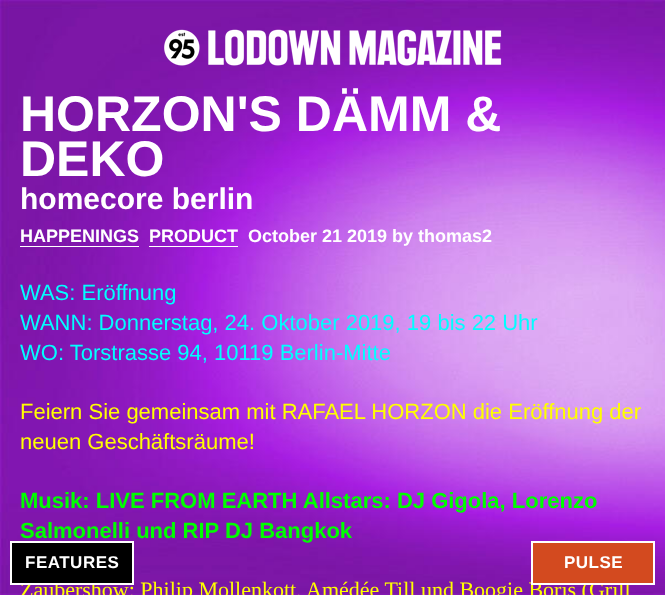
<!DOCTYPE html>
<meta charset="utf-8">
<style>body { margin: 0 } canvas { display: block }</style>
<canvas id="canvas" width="665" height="595"></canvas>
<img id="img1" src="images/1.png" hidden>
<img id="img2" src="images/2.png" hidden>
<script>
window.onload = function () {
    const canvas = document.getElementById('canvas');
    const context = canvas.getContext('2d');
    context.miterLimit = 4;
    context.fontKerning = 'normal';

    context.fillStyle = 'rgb(255, 255, 255)';
    context.fillRect(0, 0, 665, 595);
    context.drawImage(document.getElementById('img1'), 0, 0, 665, 595);
    context.drawImage(document.getElementById('img2'), 164, 29, 338, 37);
    context.fillRect(20, 246, 119, 1);
    context.fillRect(149, 246, 89, 1);
    context.font = 'bold 50px Liberation Sans';
    context.fillText('HORZON\'S DÄMM &', 20, 131);
    context.fillText('DEKO', 20, 176);
    context.font = 'bold 30px Liberation Sans';
    context.fillText('homecore berlin', 20, 209);
    context.font = 'bold 18px Liberation Sans';
    context.fillText('HAPPENINGS', 20, 242);
    context.fillText('PRODUCT', 149, 242);
    context.fillText('October 21 2019 by thomas2', 248, 242);
    context.font = '22px Liberation Sans';
    context.fillStyle = 'rgb(0, 255, 255)';
    context.fillText('WAS: Eröffnung', 20, 300);
    context.fillText('WANN: Donnerstag, 24. Oktober 2019, 19 bis 22 Uhr', 20, 330);
    context.fillText('WO: Torstrasse 94, 10119 Berlin-Mitte', 20, 360);
    context.fillStyle = 'rgb(255, 255, 0)';
    context.fillText('Feiern Sie gemeinsam mit RAFAEL HORZON die Eröffnung der', 20, 419);
    context.fillText('neuen Geschäftsräume!', 20, 449);
    context.font = 'bold 22px Liberation Sans';
    context.fillStyle = 'rgb(0, 255, 0)';
    context.fillText('Musik: LIVE FROM EARTH Allstars: DJ Gigola, Lorenzo', 20, 508);
    context.fillText('Salmonelli und RIP DJ Bangkok', 20, 538);
    context.font = '22px Liberation Serif';
    context.fillStyle = 'rgb(255, 255, 0)';
    context.fillText('Zaubershow: Philip Mollenkott, Amédée Till und Boogie Boris (Grill', 20, 597);
    context.fillStyle = 'rgb(0, 0, 0)';
    context.beginPath();
    context.rect(11, 542, 122, 42);
    context.fill();
    context.strokeStyle = 'rgb(255, 255, 255)';
    context.lineWidth = 2;
    context.stroke();
    context.letterSpacing = '0.5px';
    context.font = 'bold 17px Liberation Sans';
    context.fillStyle = 'rgb(255, 255, 255)';
    context.fillText('FEATURES', 25, 568);
    context.fillStyle = 'rgb(211, 74, 31)';
    context.beginPath();
    context.rect(532, 542, 122, 42);
    context.fill();
    context.stroke();
    context.fillStyle = 'rgb(255, 255, 255)';
    context.fillText('PULSE', 564, 568);
};
</script>
